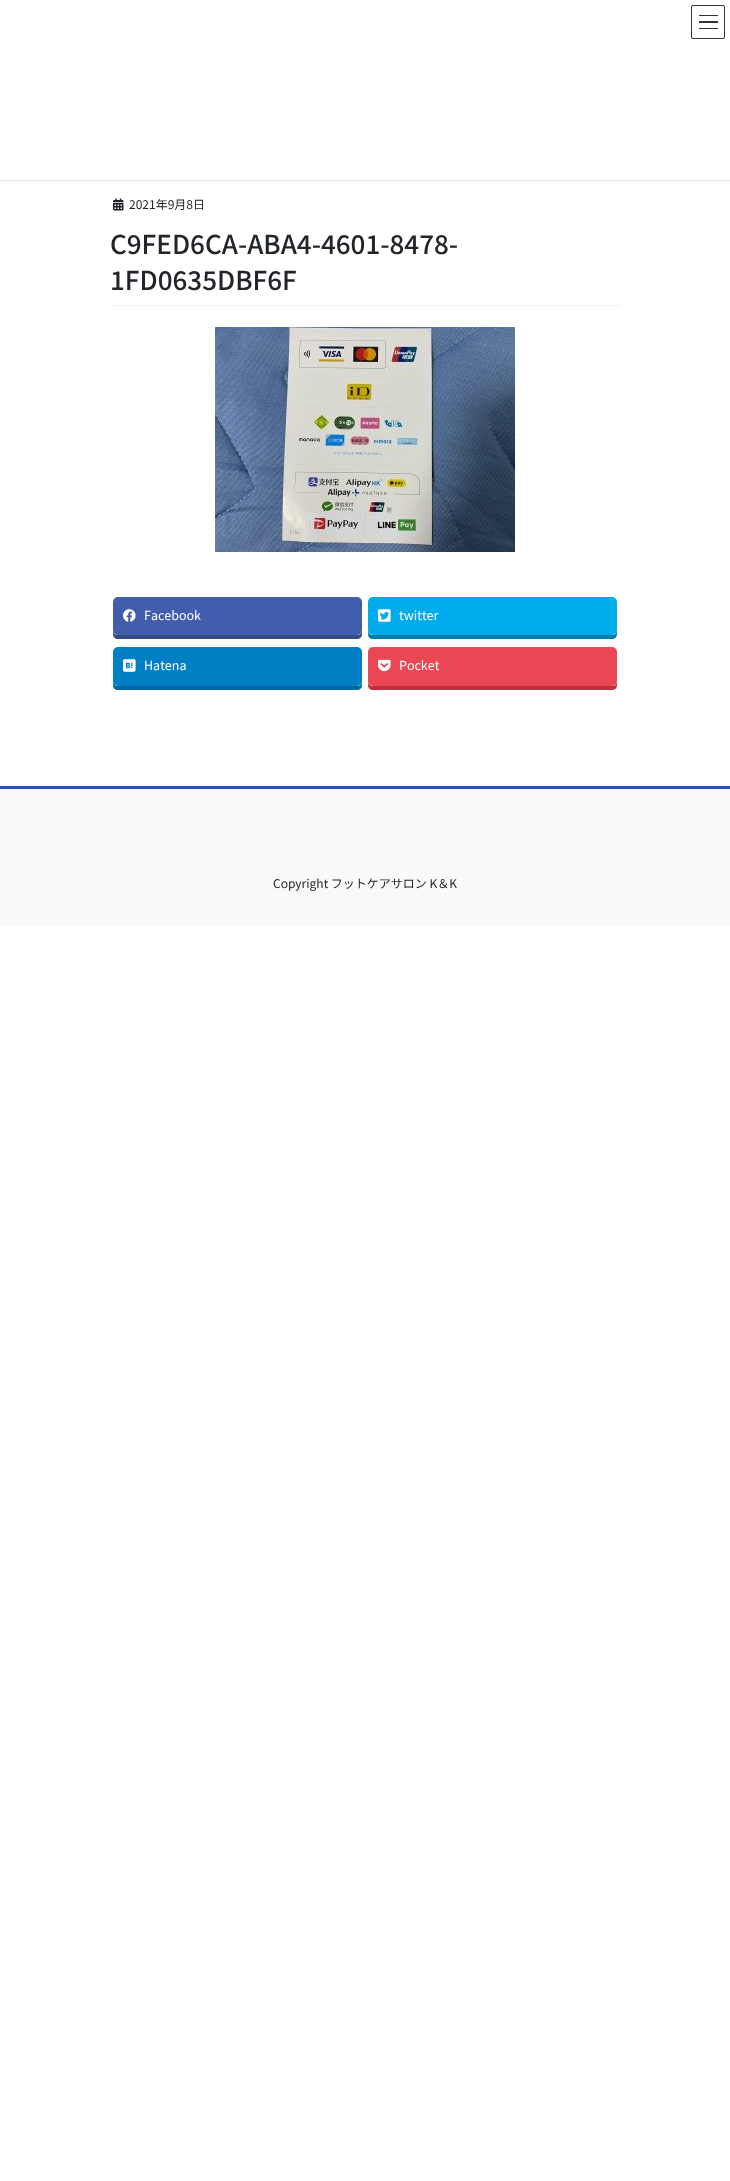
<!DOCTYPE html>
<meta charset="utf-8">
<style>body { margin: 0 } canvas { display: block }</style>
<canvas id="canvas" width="730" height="2181"></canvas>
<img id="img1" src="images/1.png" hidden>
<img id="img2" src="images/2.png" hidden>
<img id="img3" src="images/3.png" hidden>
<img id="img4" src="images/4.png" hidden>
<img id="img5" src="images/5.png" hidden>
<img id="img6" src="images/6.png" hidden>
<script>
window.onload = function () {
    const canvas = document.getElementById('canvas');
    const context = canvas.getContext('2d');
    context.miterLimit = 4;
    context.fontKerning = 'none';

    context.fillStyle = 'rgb(255, 255, 255)';
    context.fillRect(0, 0, 730, 2181);
    context.fillStyle = 'rgb(51, 51, 51)';
    context.fillRect(699, 15, 19, 1);
    context.fillRect(699, 21, 19, 2);
    context.fillRect(699, 28, 19, 1);
    context.beginPath();
    context.roundRect(691.5, 5.5, 33, 33, 1.5);
    context.strokeStyle = 'rgb(51, 51, 51)';
    context.stroke();
    context.fillStyle = 'rgb(229, 229, 229)';
    context.fillRect(0, 180, 730, 1);
    context.fillStyle = 'rgb(242, 242, 242)';
    context.fillRect(110, 305, 510, 1);
    context.drawImage(document.getElementById('img1'), 113, 198, 11, 13);
    context.drawImage(document.getElementById('img2'), 215, 327, 300, 225);
    context.fillStyle = 'rgb(52, 78, 132)';
    context.beginPath();
    context.moveTo(113, 630);
    context.lineTo(113, 634);
    context.bezierCurveTo(113, 637, 115, 639, 118, 639);
    context.lineTo(357, 639);
    context.bezierCurveTo(360, 639, 362, 637, 362, 634);
    context.lineTo(362, 630);
    context.bezierCurveTo(362, 633, 360, 635, 357, 635);
    context.lineTo(118, 635);
    context.bezierCurveTo(115, 635, 113, 633, 113, 630);
    context.closePath();
    context.fill();
    context.fillStyle = 'rgb(66, 93, 171)';
    context.beginPath();
    context.roundRect(113, 597, 249, 38, 5);
    context.fill();
    context.drawImage(document.getElementById('img3'), 123, 609, 13, 13);
    context.fillStyle = 'rgb(0, 126, 170)';
    context.beginPath();
    context.moveTo(368, 630);
    context.lineTo(368, 634);
    context.bezierCurveTo(368, 637, 370, 639, 373, 639);
    context.lineTo(612, 639);
    context.bezierCurveTo(615, 639, 617, 637, 617, 634);
    context.lineTo(617, 630);
    context.bezierCurveTo(617, 633, 615, 635, 612, 635);
    context.lineTo(373, 635);
    context.bezierCurveTo(370, 635, 368, 633, 368, 630);
    context.closePath();
    context.fill();
    context.fillStyle = 'rgb(0, 171, 236)';
    context.beginPath();
    context.roundRect(368, 597, 249, 38, 5);
    context.fill();
    context.drawImage(document.getElementById('img4'), 378, 609, 13, 13);
    context.fillStyle = 'rgb(0, 103, 159)';
    context.beginPath();
    context.moveTo(113, 681);
    context.lineTo(113, 685);
    context.bezierCurveTo(113, 688, 115, 690, 118, 690);
    context.lineTo(357, 690);
    context.bezierCurveTo(360, 690, 362, 688, 362, 685);
    context.lineTo(362, 681);
    context.bezierCurveTo(362, 684, 360, 686, 357, 686);
    context.lineTo(118, 686);
    context.bezierCurveTo(115, 686, 113, 684, 113, 681);
    context.closePath();
    context.fill();
    context.fillStyle = 'rgb(0, 127, 197)';
    context.beginPath();
    context.roundRect(113, 647, 249, 39, 5);
    context.fill();
    context.drawImage(document.getElementById('img5'), 123, 659, 13, 13);
    context.fillStyle = 'rgb(193, 48, 60)';
    context.beginPath();
    context.moveTo(368, 681);
    context.lineTo(368, 685);
    context.bezierCurveTo(368, 688, 370, 690, 373, 690);
    context.lineTo(612, 690);
    context.bezierCurveTo(615, 690, 617, 688, 617, 685);
    context.lineTo(617, 681);
    context.bezierCurveTo(617, 684, 615, 686, 612, 686);
    context.lineTo(373, 686);
    context.bezierCurveTo(370, 686, 368, 684, 368, 681);
    context.closePath();
    context.fill();
    context.fillStyle = 'rgb(234, 70, 84)';
    context.beginPath();
    context.roundRect(368, 647, 249, 39, 5);
    context.fill();
    context.drawImage(document.getElementById('img6'), 378, 659, 13, 13);
    context.fillStyle = 'rgb(249, 249, 249)';
    context.fillRect(0, 789, 730, 137);
    context.fillStyle = 'rgb(39, 89, 167)';
    context.fillRect(0, 786, 730, 3);
    context.font = '12px Noto Sans JP';
    context.fillStyle = 'rgb(33, 37, 41)';
    context.fillText('2021年9月8日', 129, 209);
    context.font = '500 26px Noto Sans JP';
    context.fillText('C9FED6CA-ABA4-4601-8478-', 110, 254);
    context.fillText('1FD0635DBF6F', 110, 290);
    context.font = '12.5px Noto Sans JP';
    context.fillStyle = 'rgb(255, 255, 255)';
    context.fillText('Facebook', 144, 620);
    context.fillText('twitter', 399, 620);
    context.fillText('Hatena', 144, 670);
    context.fillText('Pocket', 399, 670);
    context.font = '12px Noto Sans JP';
    context.fillStyle = 'rgb(33, 37, 41)';
    context.fillText('Copyright フットケアサロン K＆K', 273, 888);
};
</script>
